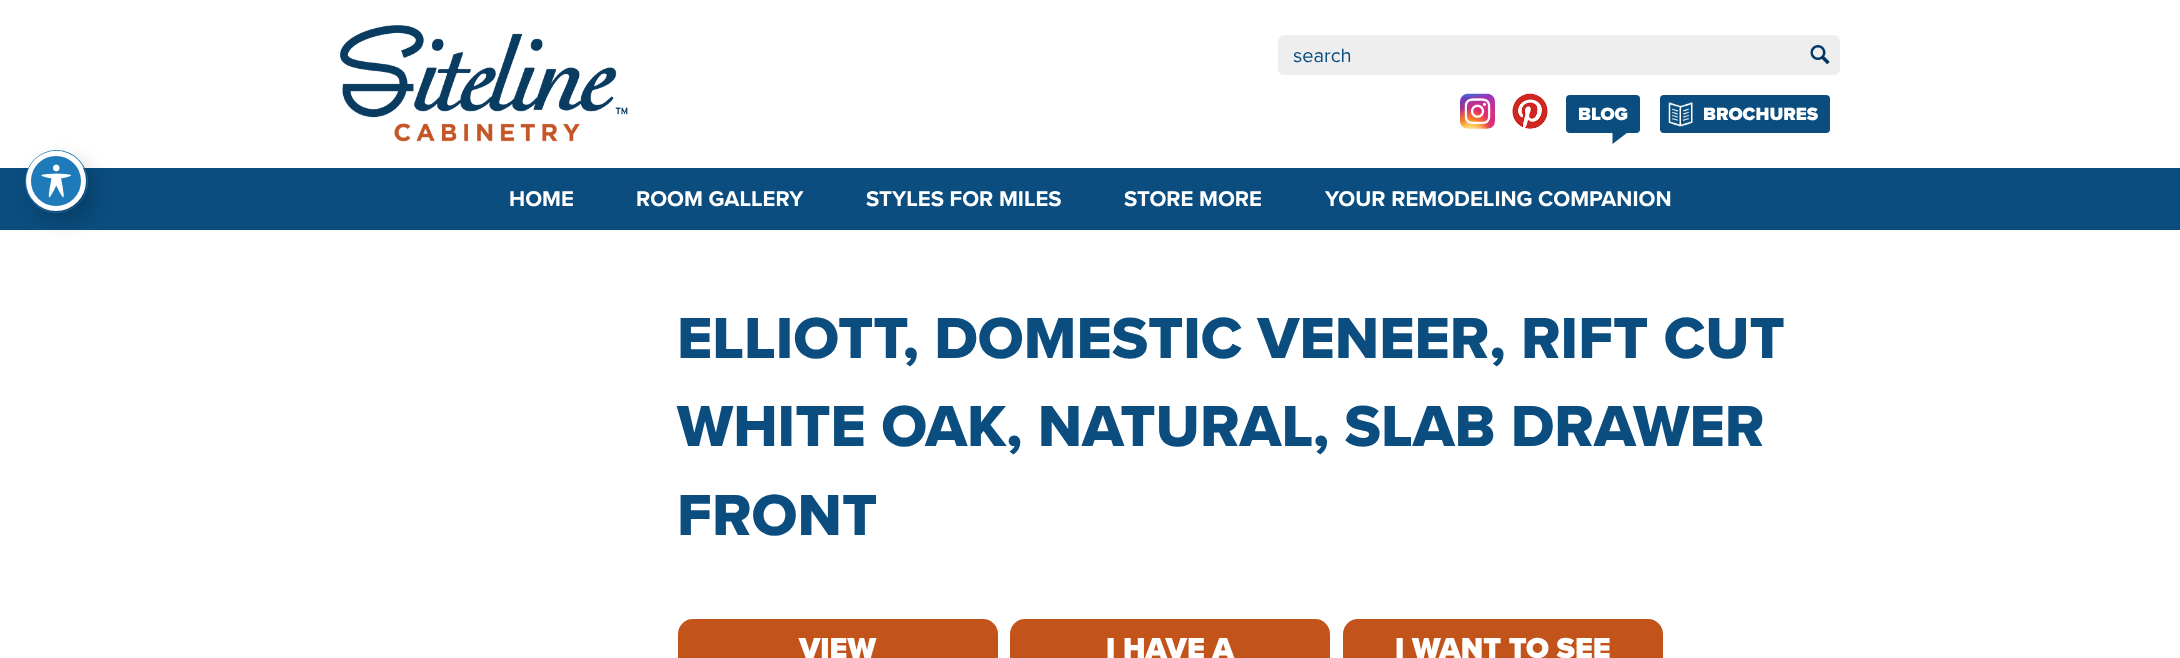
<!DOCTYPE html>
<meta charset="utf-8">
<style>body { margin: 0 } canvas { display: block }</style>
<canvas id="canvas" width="2180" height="658"></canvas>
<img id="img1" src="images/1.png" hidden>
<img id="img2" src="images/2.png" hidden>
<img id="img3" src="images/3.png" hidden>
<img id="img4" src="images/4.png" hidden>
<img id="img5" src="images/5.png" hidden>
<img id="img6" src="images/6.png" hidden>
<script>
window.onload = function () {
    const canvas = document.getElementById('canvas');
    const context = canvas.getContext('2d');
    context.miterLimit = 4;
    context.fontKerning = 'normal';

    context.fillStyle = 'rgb(255, 255, 255)';
    context.fillRect(0, 0, 2180, 658);
    context.fillStyle = 'rgb(10, 77, 126)';
    context.fillRect(0, 168, 2180, 62);
    context.beginPath();
    context.arc(56.5, 181.5, 31, 0, 2 * Math.PI);
    context.strokeStyle = 'rgb(30, 122, 185)';
    context.stroke();
    context.fillStyle = 'rgba(0, 0, 0, 0.2)';
    context.filter = 'blur(10px)';
    context.beginPath();
    context.roundRect(34, 161, 60, 60, 30);
    context.fill();
    context.filter = 'none';
    context.fillStyle = 'rgb(30, 122, 185)';
    context.beginPath();
    context.arc(56, 181, 27.5, 0, 2 * Math.PI);
    context.fill();
    context.strokeStyle = 'rgb(255, 255, 255)';
    context.lineWidth = 5;
    context.stroke();
    context.drawImage(document.getElementById('img1'), 41, 164, 30, 34);
    context.drawImage(document.getElementById('img2'), 340, 25, 288, 117);
    context.fillStyle = 'rgb(238, 238, 238)';
    context.beginPath();
    context.roundRect(1278, 35, 562, 40, 6);
    context.fill();
    context.drawImage(document.getElementById('img3'), 1810, 45, 20, 20);
    context.drawImage(document.getElementById('img4'), 1460, 93, 35, 36);
    context.drawImage(document.getElementById('img5'), 1512, 93, 36, 36);
    context.fillStyle = 'rgb(10, 77, 126)';
    context.beginPath();
    context.roundRect(1566, 95, 74, 38, 4);
    context.fill();
    context.beginPath();
    context.moveTo(1612.5, 132.5);
    context.lineTo(1627.5, 132.5);
    context.lineTo(1612.5, 144);
    context.closePath();
    context.fill();
    context.beginPath();
    context.roundRect(1660, 95, 170, 38, 4);
    context.fill();
    context.drawImage(document.getElementById('img6'), 1668, 102, 25, 25);
    context.fillStyle = 'rgb(194, 83, 26)';
    context.beginPath();
    context.roundRect(678, 619, 320, 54, 15);
    context.fill();
    context.beginPath();
    context.roundRect(1010, 619, 320, 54, 15);
    context.fill();
    context.beginPath();
    context.roundRect(1343, 619, 320, 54, 15);
    context.fill();
    context.font = '20px Proxima Nova';
    context.fillStyle = 'rgb(10, 77, 126)';
    context.fillText('search', 1293, 62);
    context.font = '900 18.5px Proxima Nova';
    context.fillStyle = 'rgb(255, 255, 255)';
    context.fillText('BLOG', 1578, 120);
    context.fillText('BROCHURES', 1703, 120);
    context.font = 'bold 22.1px Proxima Nova';
    context.fillText('HOME', 509, 206);
    context.fillText('ROOM GALLERY', 636, 206);
    context.fillText('STYLES FOR MILES', 866, 206);
    context.fillText('STORE MORE', 1124, 206);
    context.fillText('YOUR REMODELING COMPANION', 1325, 206);
    context.font = '800 60px Proxima Nova';
    context.fillStyle = 'rgb(10, 77, 126)';
    context.fillText('ELLIOTT, DOMESTIC VENEER, RIFT CUT', 677, 358);
    context.fillText('WHITE OAK, NATURAL, SLAB DRAWER', 677, 446);
    context.fillText('FRONT', 677, 535);
    context.font = '900 30px Proxima Nova';
    context.fillStyle = 'rgb(255, 255, 255)';
    context.fillText('VIEW', 799, 658);
    context.fillText('I HAVE A', 1106, 658);
    context.fillText('I WANT TO SEE', 1395, 658);
};
</script>
